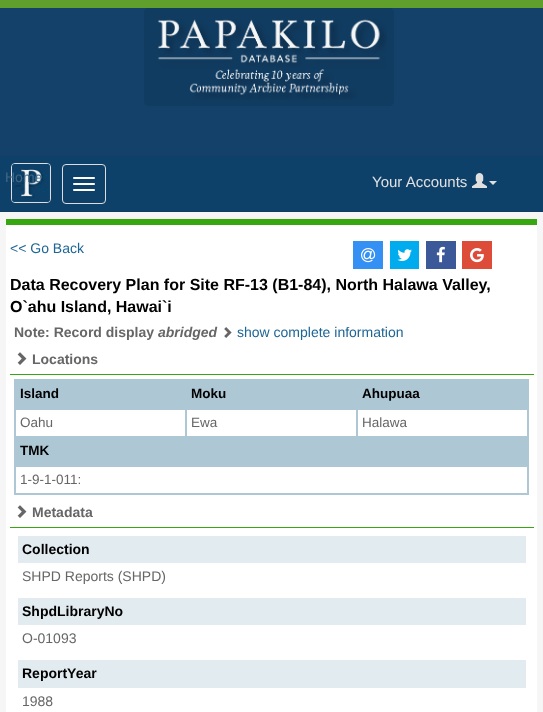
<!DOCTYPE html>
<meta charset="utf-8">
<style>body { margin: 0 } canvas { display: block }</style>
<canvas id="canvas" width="543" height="712"></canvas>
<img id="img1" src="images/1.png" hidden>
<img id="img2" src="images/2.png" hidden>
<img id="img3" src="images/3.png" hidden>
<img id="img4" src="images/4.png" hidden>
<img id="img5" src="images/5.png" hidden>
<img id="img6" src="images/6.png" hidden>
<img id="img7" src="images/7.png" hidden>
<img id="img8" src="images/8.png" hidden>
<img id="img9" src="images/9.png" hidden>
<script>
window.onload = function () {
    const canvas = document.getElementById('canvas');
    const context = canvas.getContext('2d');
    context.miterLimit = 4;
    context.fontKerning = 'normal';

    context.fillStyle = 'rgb(19, 65, 105)';
    context.fillRect(0, 0, 543, 712);
    context.fillStyle = 'rgb(96, 159, 44)';
    context.fillRect(0, 0, 543, 8);
    context.fillStyle = 'rgb(17, 60, 97)';
    context.beginPath();
    context.roundRect(144, 8, 250, 98, 5);
    context.fill();
    context.drawImage(document.getElementById('img1'), 158, 19, 229, 81);
    context.fillStyle = 'rgb(51, 51, 51)';
    context.filter = 'blur(1px)';
    context.beginPath();
    context.rect(1, 157, 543, 56);
    context.fill();
    context.filter = 'none';
    context.fillStyle = 'rgb(14, 65, 105)';
    context.fillRect(0, 156, 543, 56);
    context.beginPath();
    context.roundRect(11.5, 163.5, 39, 39, 3.5);
    context.strokeStyle = 'rgb(221, 221, 221)';
    context.stroke();
    context.drawImage(document.getElementById('img2'), 12, 164, 38, 38);
    context.beginPath();
    context.roundRect(62.5, 164.5, 43, 39, 3.5);
    context.stroke();
    context.fillStyle = 'rgb(255, 255, 255)';
    context.beginPath();
    context.roundRect(73, 177, 22, 2, 1);
    context.fill();
    context.beginPath();
    context.roundRect(73, 183, 22, 2, 1);
    context.fill();
    context.beginPath();
    context.roundRect(73, 189, 22, 2, 1);
    context.fill();
    context.drawImage(document.getElementById('img3'), 472, 173, 15, 15);
    context.fillStyle = 'rgb(224, 224, 224)';
    context.beginPath();
    context.moveTo(489, 181);
    context.lineTo(497, 181);
    context.lineTo(493, 185);
    context.closePath();
    context.fill();
    context.fillStyle = 'rgb(51, 51, 51)';
    context.filter = 'blur(1px)';
    context.beginPath();
    context.rect(1, 213, 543, 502);
    context.fill();
    context.filter = 'none';
    context.fillStyle = 'rgb(246, 246, 246)';
    context.fillRect(0, 212, 543, 500);
    context.fillStyle = 'rgb(255, 255, 255)';
    context.fillRect(6, 225, 531, 487);
    context.fillStyle = 'rgb(54, 167, 14)';
    context.fillRect(6, 219, 531, 6);
    context.fillStyle = 'rgb(52, 144, 243)';
    context.fillRect(353, 241, 30, 28);
    context.drawImage(document.getElementById('img4'), 361, 248, 15, 15);
    context.fillStyle = 'rgb(0, 172, 237)';
    context.fillRect(390, 241, 29, 28);
    context.drawImage(document.getElementById('img5'), 397, 249, 15, 12);
    context.fillStyle = 'rgb(59, 89, 152)';
    context.fillRect(426, 241, 30, 28);
    context.drawImage(document.getElementById('img6'), 436, 246, 9, 17);
    context.fillStyle = 'rgb(221, 75, 57)';
    context.fillRect(462, 241, 30, 28);
    context.drawImage(document.getElementById('img7'), 470, 248, 14, 15);
    context.drawImage(document.getElementById('img8'), 224, 327, 8, 11);
    context.fillStyle = 'rgb(54, 167, 14)';
    context.fillRect(10, 374, 524, 1);
    context.drawImage(document.getElementById('img9'), 17, 352, 10, 13);
    context.fillStyle = 'rgb(173, 199, 212)';
    context.fillRect(14, 379, 515, 116);
    context.fillStyle = 'rgb(255, 255, 255)';
    context.fillRect(16, 410, 169, 26);
    context.fillRect(187, 410, 169, 26);
    context.fillRect(358, 410, 169, 26);
    context.fillRect(16, 467, 511, 26);
    context.fillStyle = 'rgb(54, 167, 14)';
    context.fillRect(10, 527, 524, 1);
    context.drawImage(document.getElementById('img9'), 17, 505, 10, 13);
    context.fillStyle = 'rgb(226, 235, 240)';
    context.fillRect(18, 536, 508, 27);
    context.fillRect(18, 598, 508, 27);
    context.fillRect(18, 660, 508, 28);
    context.font = '14px Liberation Sans';
    context.fillStyle = 'rgb(64, 104, 134)';
    context.fillText('Home', 5, 182);
    context.font = '15px Liberation Sans';
    context.fillStyle = 'rgb(224, 224, 224)';
    context.fillText('Your Accounts', 372, 187);
    context.font = '14px Liberation Sans';
    context.fillStyle = 'rgb(29, 101, 149)';
    context.fillText('<< Go Back', 10, 253);
    context.font = 'bold 16px Liberation Sans';
    context.fillStyle = 'rgb(0, 0, 0)';
    context.fillText('Data Recovery Plan for Site RF-13 (B1-84), North Halawa Valley,', 10, 290);
    context.fillText('O`ahu Island, Hawai`i', 10, 312);
    context.font = 'bold 14px Liberation Sans';
    context.fillStyle = 'rgb(102, 102, 102)';
    context.fillText('Note: Record display', 14, 337);
    context.font = 'italic bold 14px Liberation Sans';
    context.fillText('abridged', 158, 337);
    context.font = '14px Liberation Sans';
    context.fillStyle = 'rgb(29, 101, 149)';
    context.fillText('show complete information', 237, 337);
    context.font = 'bold 14px Liberation Sans';
    context.fillStyle = 'rgb(102, 102, 102)';
    context.fillText('Locations', 32, 364);
    context.font = 'bold 13.5px Liberation Sans';
    context.fillStyle = 'rgb(0, 0, 0)';
    context.fillText('Island', 20, 398);
    context.fillText('Moku', 191, 398);
    context.fillText('Ahupuaa', 362, 398);
    context.font = '13.5px Liberation Sans';
    context.fillStyle = 'rgb(102, 102, 102)';
    context.fillText('Oahu', 20, 427);
    context.fillText('Ewa', 191, 427);
    context.fillText('Halawa', 362, 427);
    context.font = 'bold 13.5px Liberation Sans';
    context.fillStyle = 'rgb(0, 0, 0)';
    context.fillText('TMK', 20, 455);
    context.font = '13.5px Liberation Sans';
    context.fillStyle = 'rgb(102, 102, 102)';
    context.fillText('1-9-1-011:', 20, 484);
    context.font = 'bold 14px Liberation Sans';
    context.fillText('Metadata', 32, 517);
    context.fillStyle = 'rgb(0, 0, 0)';
    context.fillText('Collection', 22, 554);
    context.font = '14px Liberation Sans';
    context.fillStyle = 'rgb(102, 102, 102)';
    context.fillText('SHPD Reports (SHPD)', 22, 581);
    context.font = 'bold 14px Liberation Sans';
    context.fillStyle = 'rgb(0, 0, 0)';
    context.fillText('ShpdLibraryNo', 22, 616);
    context.font = '14px Liberation Sans';
    context.fillStyle = 'rgb(102, 102, 102)';
    context.fillText('O-01093', 22, 643);
    context.font = 'bold 14px Liberation Sans';
    context.fillStyle = 'rgb(0, 0, 0)';
    context.fillText('ReportYear', 22, 678);
    context.font = '14px Liberation Sans';
    context.fillStyle = 'rgb(102, 102, 102)';
    context.fillText('1988', 22, 706);
};
</script>
